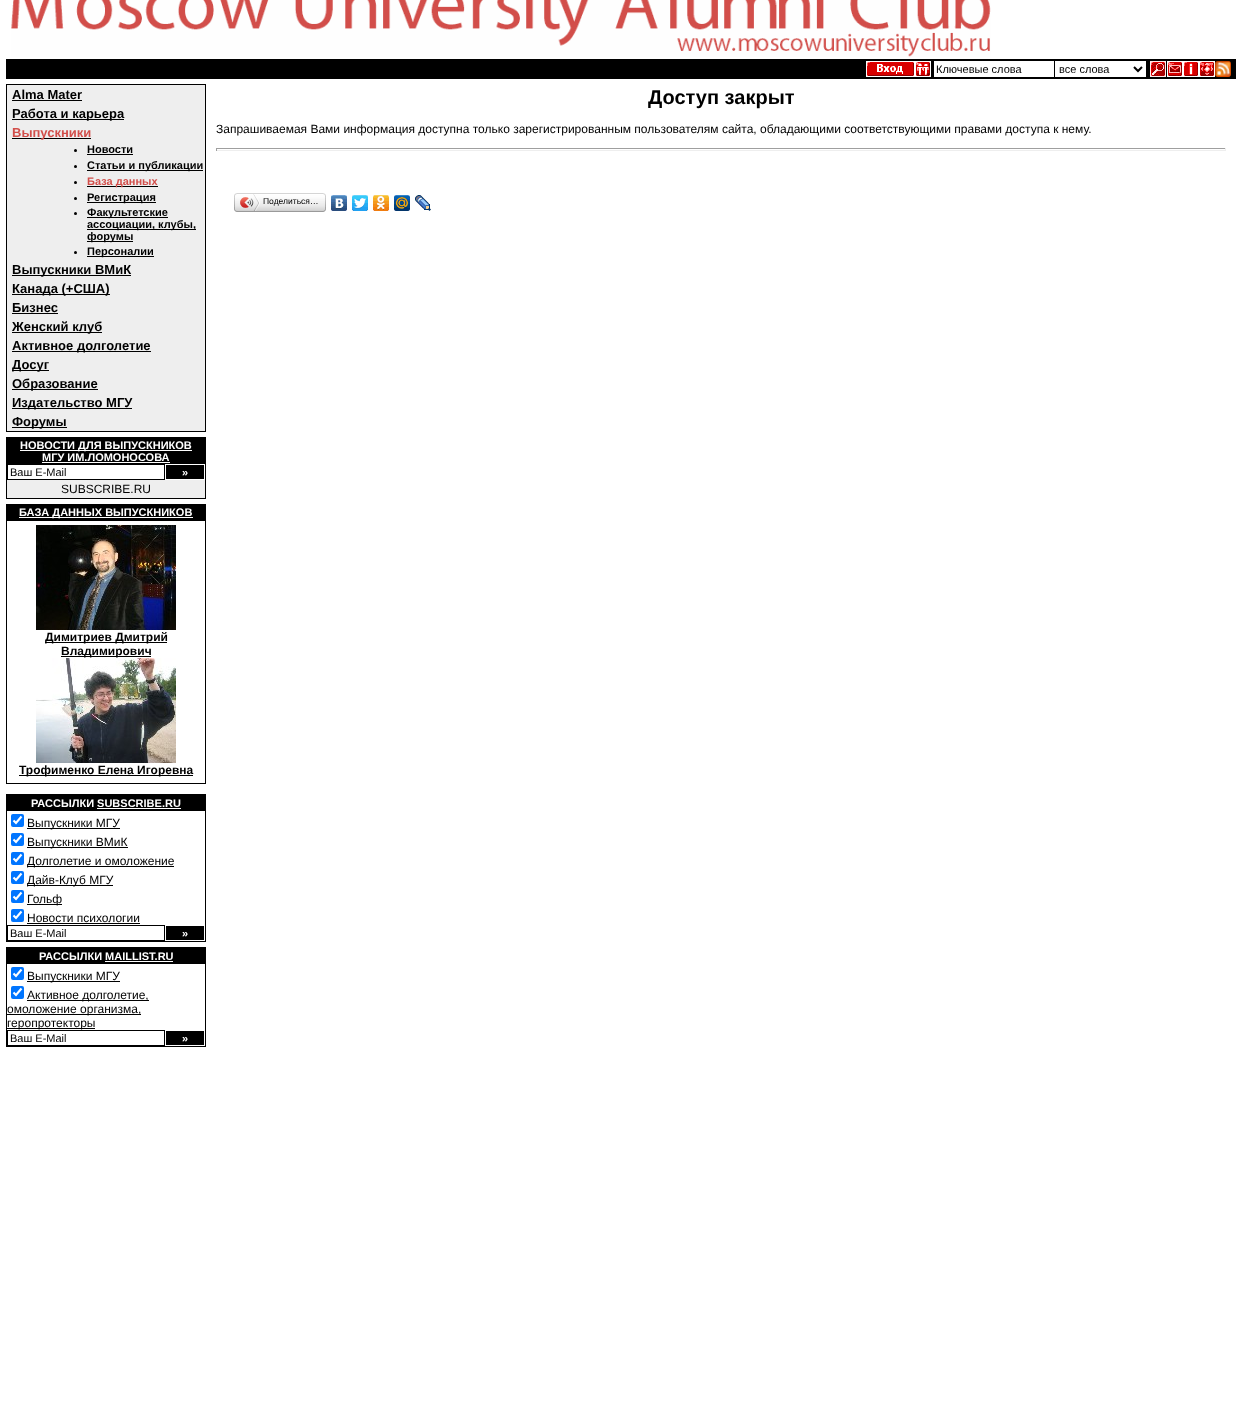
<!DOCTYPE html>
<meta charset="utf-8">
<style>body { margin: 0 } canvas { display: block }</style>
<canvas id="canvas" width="1242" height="1407"></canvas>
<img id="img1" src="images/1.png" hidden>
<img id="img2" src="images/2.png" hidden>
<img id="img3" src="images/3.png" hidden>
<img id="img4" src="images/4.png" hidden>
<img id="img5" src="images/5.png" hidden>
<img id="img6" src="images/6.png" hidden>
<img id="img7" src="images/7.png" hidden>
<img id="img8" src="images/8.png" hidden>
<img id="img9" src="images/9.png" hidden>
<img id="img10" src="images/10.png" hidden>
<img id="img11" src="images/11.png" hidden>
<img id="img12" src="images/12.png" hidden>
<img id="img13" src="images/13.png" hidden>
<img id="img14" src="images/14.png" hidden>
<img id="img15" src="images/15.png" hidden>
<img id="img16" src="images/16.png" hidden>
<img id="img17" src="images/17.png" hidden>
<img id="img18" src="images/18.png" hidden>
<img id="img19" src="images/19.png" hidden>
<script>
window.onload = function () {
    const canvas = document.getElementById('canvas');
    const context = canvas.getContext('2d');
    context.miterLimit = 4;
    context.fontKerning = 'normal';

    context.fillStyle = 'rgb(255, 255, 255)';
    context.fillRect(0, 0, 1242, 1407);
    context.drawImage(document.getElementById('img1'), 11, 0, 980, 57);
    context.fillStyle = 'rgb(0, 0, 0)';
    context.fillRect(6, 59, 1230, 20);
    context.drawImage(document.getElementById('img2'), 866, 61, 49, 16);
    context.drawImage(document.getElementById('img3'), 915, 61, 16, 16);
    context.fillStyle = 'rgb(255, 255, 255)';
    context.fillRect(934, 61, 120, 16);
    context.fillRect(1055, 61, 91, 16);
    context.beginPath();
    context.moveTo(1134, 67);
    context.lineTo(1138, 71);
    context.lineTo(1142, 67);
    context.strokeStyle = 'rgb(0, 0, 0)';
    context.lineWidth = 2;
    context.stroke();
    context.drawImage(document.getElementById('img4'), 1150, 61, 16, 16);
    context.drawImage(document.getElementById('img5'), 1167, 61, 16, 16);
    context.drawImage(document.getElementById('img6'), 1183, 61, 16, 16);
    context.drawImage(document.getElementById('img7'), 1199, 61, 16, 16);
    context.drawImage(document.getElementById('img8'), 1215, 61, 16, 16);
    context.lineWidth = 1;
    context.strokeRect(6.5, 84.5, 199, 347);
    context.fillStyle = 'rgb(238, 238, 238)';
    context.fillRect(7, 85, 198, 346);
    context.fillStyle = 'rgb(0, 0, 0)';
    context.fillRect(12, 100, 70, 1);
    context.fillRect(12, 119, 112, 1);
    context.fillRect(12, 138, 79, 1);
    context.beginPath();
    context.arc(75.5, 150.5, 1.5, 0, 2 * Math.PI);
    context.fill();
    context.fillRect(87, 154, 46, 1);
    context.beginPath();
    context.arc(75.5, 166.5, 1.5, 0, 2 * Math.PI);
    context.fill();
    context.fillRect(87, 170, 116, 1);
    context.beginPath();
    context.arc(75.5, 182.5, 1.5, 0, 2 * Math.PI);
    context.fill();
    context.fillRect(87, 186, 71, 1);
    context.beginPath();
    context.arc(75.5, 198.5, 1.5, 0, 2 * Math.PI);
    context.fill();
    context.fillRect(87, 202, 69, 1);
    context.beginPath();
    context.arc(75.5, 213.5, 1.5, 0, 2 * Math.PI);
    context.fill();
    context.fillRect(87, 217, 81, 1);
    context.fillRect(87, 229, 109, 1);
    context.fillRect(87, 241, 46, 1);
    context.beginPath();
    context.arc(75.5, 252.5, 1.5, 0, 2 * Math.PI);
    context.fill();
    context.fillRect(87, 256, 67, 1);
    context.fillRect(12, 275, 119, 1);
    context.fillRect(12, 294, 98, 1);
    context.fillRect(12, 313, 46, 1);
    context.fillRect(12, 332, 90, 1);
    context.fillRect(12, 351, 139, 1);
    context.fillRect(12, 370, 37, 1);
    context.fillRect(12, 389, 86, 1);
    context.fillRect(12, 408, 120, 1);
    context.fillRect(12, 427, 55, 1);
    context.fillStyle = 'rgb(238, 238, 238)';
    context.fillRect(7, 480, 198, 18);
    context.strokeRect(6.5, 437.5, 199, 61);
    context.fillStyle = 'rgb(0, 0, 0)';
    context.fillRect(7, 438, 198, 26);
    context.fillStyle = 'rgb(255, 255, 255)';
    context.fillRect(20, 450, 172, 1);
    context.fillRect(42, 462, 128, 1);
    context.strokeRect(7.5, 464.5, 157, 15);
    context.fillStyle = 'rgb(0, 0, 0)';
    context.fillRect(166, 465, 38, 14);
    context.fillRect(6, 504, 200, 16);
    context.fillStyle = 'rgb(255, 255, 255)';
    context.fillRect(19, 517, 174, 1);
    context.strokeRect(6.5, 520.5, 199, 263);
    context.drawImage(document.getElementById('img9'), 36, 525, 140, 105);
    context.fillStyle = 'rgb(0, 0, 0)';
    context.fillRect(45, 642, 122, 1);
    context.fillRect(61, 656, 90, 1);
    context.drawImage(document.getElementById('img10'), 36, 658, 140, 105);
    context.fillRect(19, 775, 174, 1);
    context.strokeRect(6.5, 794.5, 199, 147);
    context.fillRect(7, 795, 198, 16);
    context.fillStyle = 'rgb(255, 255, 255)';
    context.fillRect(97, 808, 84, 1);
    context.fillStyle = 'rgb(0, 117, 255)';
    context.beginPath();
    context.roundRect(11, 814, 13, 13, 2);
    context.fill();
    context.beginPath();
    context.moveTo(13.5, 820.5);
    context.lineTo(16, 823);
    context.lineTo(21.5, 816.5);
    context.strokeStyle = 'rgb(255, 255, 255)';
    context.lineWidth = 2.1;
    context.stroke();
    context.fillStyle = 'rgb(0, 0, 0)';
    context.fillRect(27, 828, 93, 1);
    context.fillStyle = 'rgb(0, 117, 255)';
    context.beginPath();
    context.roundRect(11, 833, 13, 13, 2);
    context.fill();
    context.beginPath();
    context.moveTo(13.5, 839.5);
    context.lineTo(16, 842);
    context.lineTo(21.5, 835.5);
    context.stroke();
    context.fillStyle = 'rgb(0, 0, 0)';
    context.fillRect(27, 847, 101, 1);
    context.fillStyle = 'rgb(0, 117, 255)';
    context.beginPath();
    context.roundRect(11, 852, 13, 13, 2);
    context.fill();
    context.beginPath();
    context.moveTo(13.5, 858.5);
    context.lineTo(16, 861);
    context.lineTo(21.5, 854.5);
    context.stroke();
    context.fillStyle = 'rgb(0, 0, 0)';
    context.fillRect(27, 866, 147, 1);
    context.fillStyle = 'rgb(0, 117, 255)';
    context.beginPath();
    context.roundRect(11, 871, 13, 13, 2);
    context.fill();
    context.beginPath();
    context.moveTo(13.5, 877.5);
    context.lineTo(16, 880);
    context.lineTo(21.5, 873.5);
    context.stroke();
    context.fillStyle = 'rgb(0, 0, 0)';
    context.fillRect(27, 885, 86, 1);
    context.fillStyle = 'rgb(0, 117, 255)';
    context.beginPath();
    context.roundRect(11, 890, 13, 13, 2);
    context.fill();
    context.beginPath();
    context.moveTo(13.5, 896.5);
    context.lineTo(16, 899);
    context.lineTo(21.5, 892.5);
    context.stroke();
    context.fillStyle = 'rgb(0, 0, 0)';
    context.fillRect(27, 904, 35, 1);
    context.fillStyle = 'rgb(0, 117, 255)';
    context.beginPath();
    context.roundRect(11, 909, 13, 13, 2);
    context.fill();
    context.beginPath();
    context.moveTo(13.5, 915.5);
    context.lineTo(16, 918);
    context.lineTo(21.5, 911.5);
    context.stroke();
    context.fillStyle = 'rgb(0, 0, 0)';
    context.fillRect(27, 923, 113, 1);
    context.strokeStyle = 'rgb(0, 0, 0)';
    context.lineWidth = 1;
    context.strokeRect(7.5, 925.5, 157, 15);
    context.fillRect(166, 926, 38, 14);
    context.strokeRect(6.5, 947.5, 199, 99);
    context.fillRect(7, 948, 198, 16);
    context.fillStyle = 'rgb(255, 255, 255)';
    context.fillRect(105, 961, 68, 1);
    context.fillStyle = 'rgb(0, 117, 255)';
    context.beginPath();
    context.roundRect(11, 967, 13, 13, 2);
    context.fill();
    context.beginPath();
    context.moveTo(13.5, 973.5);
    context.lineTo(16, 976);
    context.lineTo(21.5, 969.5);
    context.strokeStyle = 'rgb(255, 255, 255)';
    context.lineWidth = 2.1;
    context.stroke();
    context.fillStyle = 'rgb(0, 0, 0)';
    context.fillRect(27, 981, 93, 1);
    context.fillStyle = 'rgb(0, 117, 255)';
    context.beginPath();
    context.roundRect(11, 986, 13, 13, 2);
    context.fill();
    context.beginPath();
    context.moveTo(13.5, 992.5);
    context.lineTo(16, 995);
    context.lineTo(21.5, 988.5);
    context.stroke();
    context.fillStyle = 'rgb(0, 0, 0)';
    context.fillRect(27, 1000, 122, 1);
    context.fillRect(7, 1014, 134, 1);
    context.fillRect(7, 1028, 88, 1);
    context.strokeStyle = 'rgb(0, 0, 0)';
    context.lineWidth = 1;
    context.strokeRect(7.5, 1030.5, 157, 15);
    context.fillRect(166, 1031, 38, 14);
    context.fillStyle = 'rgb(159, 159, 159)';
    context.fillRect(216, 148, 1010, 1);
    context.fillStyle = 'rgb(238, 238, 238)';
    context.fillRect(1225, 148, 1, 3);
    context.fillRect(216, 150, 1010, 1);
    context.fillStyle = 'rgb(159, 159, 159)';
    context.fillRect(216, 148, 1, 3);
    context.drawImage(document.getElementById('img11'), 237, 193, 86, 19);
    context.drawImage(document.getElementById('img12'), 234, 193, 3, 19);
    context.drawImage(document.getElementById('img13'), 240, 194, 20, 17);
    context.drawImage(document.getElementById('img14'), 323, 193, 3, 19);
    context.drawImage(document.getElementById('img15'), 331, 195, 16, 16);
    context.drawImage(document.getElementById('img16'), 352, 195, 16, 16);
    context.drawImage(document.getElementById('img17'), 373, 195, 16, 16);
    context.drawImage(document.getElementById('img18'), 394, 195, 16, 16);
    context.drawImage(document.getElementById('img19'), 415, 195, 16, 16);
    context.font = '11px Liberation Sans';
    context.fillStyle = 'rgb(0, 0, 0)';
    context.fillText('Ключевые слова', 936, 73);
    context.fillText('все слова', 1059, 73);
    context.font = 'bold 13px Liberation Sans';
    context.fillText('Alma Mater', 12, 99);
    context.fillText('Работа и карьера', 12, 118);
    context.fillStyle = 'rgb(210, 78, 74)';
    context.fillText('Выпускники', 12, 137);
    context.font = 'bold 11px Liberation Sans';
    context.fillStyle = 'rgb(0, 0, 0)';
    context.fillText('Новости', 87, 153);
    context.fillText('Статьи и публикации', 87, 169);
    context.fillStyle = 'rgb(210, 78, 74)';
    context.fillText('База данных', 87, 185);
    context.fillStyle = 'rgb(0, 0, 0)';
    context.fillText('Регистрация', 87, 201);
    context.fillText('Факультетские', 87, 216);
    context.fillText('ассоциации, клубы,', 87, 228);
    context.fillText('форумы', 87, 240);
    context.fillText('Персоналии', 87, 255);
    context.font = 'bold 13px Liberation Sans';
    context.fillText('Выпускники ВМиК', 12, 274);
    context.fillText('Канада (+США)', 12, 293);
    context.fillText('Бизнес', 12, 312);
    context.fillText('Женский клуб', 12, 331);
    context.fillText('Активное долголетие', 12, 350);
    context.fillText('Досуг', 12, 369);
    context.fillText('Образование', 12, 388);
    context.fillText('Издательство МГУ', 12, 407);
    context.fillText('Форумы', 12, 426);
    context.font = 'bold 11px Liberation Sans';
    context.fillStyle = 'rgb(255, 255, 255)';
    context.fillText('НОВОСТИ ДЛЯ ВЫПУСКНИКОВ', 20, 449);
    context.fillText('МГУ ИМ.ЛОМОНОСОВА', 42, 461);
    context.font = '11px Liberation Sans';
    context.fillStyle = 'rgb(0, 0, 0)';
    context.fillText('Ваш E-Mail', 10, 476);
    context.font = 'bold 11px Liberation Sans';
    context.fillStyle = 'rgb(255, 255, 255)';
    context.fillText('»', 182, 476);
    context.font = '12px Liberation Sans';
    context.fillStyle = 'rgb(0, 0, 0)';
    context.fillText('SUBSCRIBE.RU', 61, 493);
    context.font = 'bold 11px Liberation Sans';
    context.fillStyle = 'rgb(255, 255, 255)';
    context.fillText('БАЗА ДАННЫХ ВЫПУСКНИКОВ', 19, 516);
    context.font = 'bold 12px Liberation Sans';
    context.fillStyle = 'rgb(0, 0, 0)';
    context.fillText('Димитриев Дмитрий', 45, 641);
    context.fillText('Владимирович', 61, 655);
    context.fillText('Трофименко Елена Игоревна', 19, 774);
    context.font = 'bold 11px Liberation Sans';
    context.fillStyle = 'rgb(255, 255, 255)';
    context.fillText('РАССЫЛКИ SUBSCRIBE.RU', 31, 807);
    context.font = '12px Liberation Sans';
    context.fillStyle = 'rgb(0, 0, 0)';
    context.fillText('Выпускники МГУ', 27, 827);
    context.fillText('Выпускники ВМиК', 27, 846);
    context.fillText('Долголетие и омоложение', 27, 865);
    context.fillText('Дайв-Клуб МГУ', 27, 884);
    context.fillText('Гольф', 27, 903);
    context.fillText('Новости психологии', 27, 922);
    context.font = '11px Liberation Sans';
    context.fillText('Ваш E-Mail', 10, 937);
    context.font = 'bold 11px Liberation Sans';
    context.fillStyle = 'rgb(255, 255, 255)';
    context.fillText('»', 182, 937);
    context.fillText('РАССЫЛКИ MAILLIST.RU', 39, 960);
    context.font = '12px Liberation Sans';
    context.fillStyle = 'rgb(0, 0, 0)';
    context.fillText('Выпускники МГУ', 27, 980);
    context.fillText('Активное долголетие,', 27, 999);
    context.fillText('омоложение организма,', 7, 1013);
    context.fillText('геропротекторы', 7, 1027);
    context.font = '11px Liberation Sans';
    context.fillText('Ваш E-Mail', 10, 1042);
    context.font = 'bold 11px Liberation Sans';
    context.fillStyle = 'rgb(255, 255, 255)';
    context.fillText('»', 182, 1042);
    context.font = 'bold 20px Liberation Sans';
    context.fillStyle = 'rgb(0, 0, 0)';
    context.fillText('Доступ закрыт', 648, 104);
    context.font = '12px Liberation Sans';
    context.fillText('Запрашиваемая Вами информация доступна только зарегистрированным пользователям сайта, обладающими соответствующими правами доступа к нему.', 216, 133);
    context.font = '8.5px Liberation Sans';
    context.fillText('Поделиться…', 263, 204);
};
</script>
